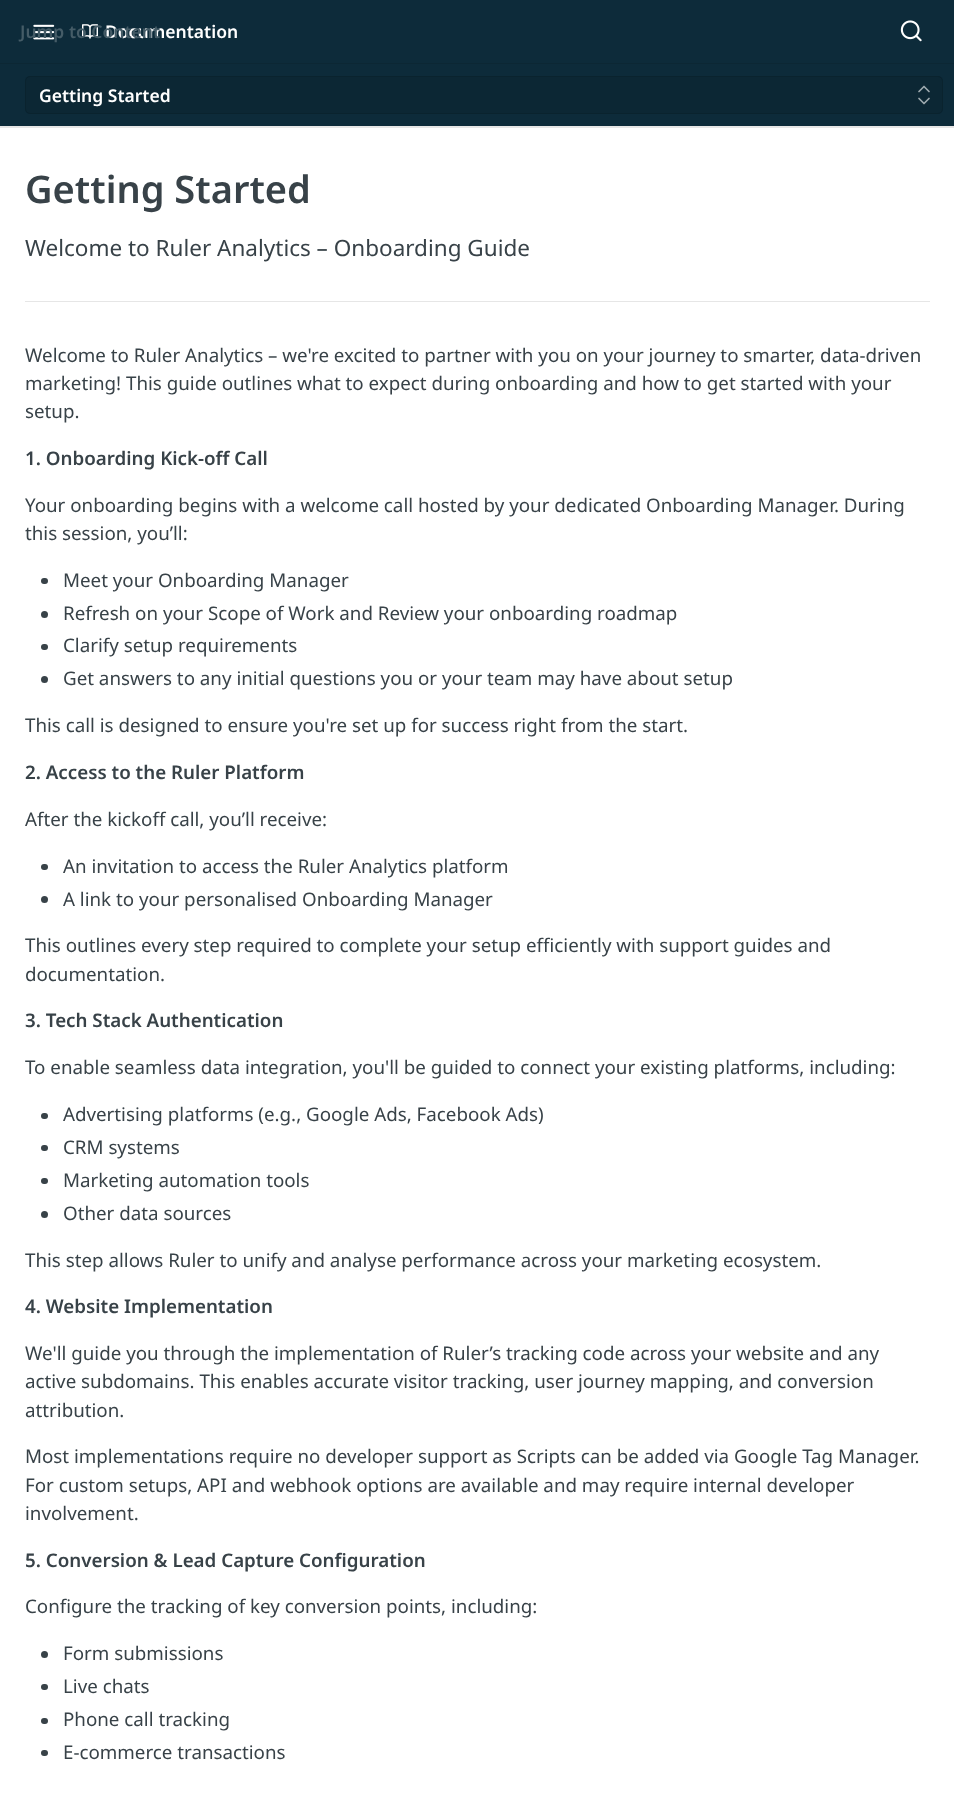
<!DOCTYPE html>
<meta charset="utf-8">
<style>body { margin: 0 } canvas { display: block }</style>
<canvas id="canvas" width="954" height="1797"></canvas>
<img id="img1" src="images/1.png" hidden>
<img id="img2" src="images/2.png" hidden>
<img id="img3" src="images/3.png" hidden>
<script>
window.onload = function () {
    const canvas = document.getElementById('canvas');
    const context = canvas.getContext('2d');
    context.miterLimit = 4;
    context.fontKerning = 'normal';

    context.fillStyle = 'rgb(255, 255, 255)';
    context.fillRect(0, 0, 954, 1797);
    context.fillStyle = 'rgb(230, 230, 230)';
    context.fillRect(0, 126, 954, 2);
    context.fillStyle = 'rgb(13, 43, 58)';
    context.fillRect(0, 0, 954, 126);
    context.fillStyle = 'rgb(12, 39, 52)';
    context.fillRect(0, 63, 954, 1);
    context.drawImage(document.getElementById('img1'), 33, 24, 22, 16);
    context.drawImage(document.getElementById('img2'), 82, 24, 16, 15);
    context.drawImage(document.getElementById('img3'), 900, 20, 22, 22);
    context.beginPath();
    context.roundRect(25, 76, 918, 38, 5);
    context.fill();
    context.beginPath();
    context.roundRect(25.5, 76.5, 917, 37, 4.5);
    context.strokeStyle = 'rgba(0, 0, 0, 0.1)';
    context.stroke();
    context.beginPath();
    context.moveTo(919, 98.5);
    context.lineTo(924, 103.5);
    context.lineTo(929, 98.5);
    context.moveTo(929, 91.5);
    context.lineTo(924, 86.5);
    context.lineTo(919, 91.5);
    context.strokeStyle = 'rgb(158, 169, 174)';
    context.lineWidth = 1.7;
    context.lineCap = 'round';
    context.lineJoin = 'round';
    context.stroke();
    context.fillStyle = 'rgb(230, 230, 230)';
    context.fillRect(25, 301, 905, 1);
    context.fillStyle = 'rgb(56, 66, 72)';
    context.beginPath();
    context.roundRect(41, 578, 7, 6, 3);
    context.fill();
    context.beginPath();
    context.arc(44.5, 614.5, 3.5, 0, 2 * Math.PI);
    context.fill();
    context.beginPath();
    context.roundRect(41, 644, 7, 6, 3);
    context.fill();
    context.beginPath();
    context.arc(44.5, 679.5, 3.5, 0, 2 * Math.PI);
    context.fill();
    context.beginPath();
    context.roundRect(41, 864, 7, 6, 3);
    context.fill();
    context.beginPath();
    context.arc(44.5, 899.5, 3.5, 0, 2 * Math.PI);
    context.fill();
    context.beginPath();
    context.roundRect(41, 1113, 7, 6, 3);
    context.fill();
    context.beginPath();
    context.roundRect(41, 1145, 7, 6, 3);
    context.fill();
    context.beginPath();
    context.roundRect(41, 1178, 7, 6, 3);
    context.fill();
    context.beginPath();
    context.arc(44.5, 1214.5, 3.5, 0, 2 * Math.PI);
    context.fill();
    context.beginPath();
    context.arc(44.5, 1654.5, 3.5, 0, 2 * Math.PI);
    context.fill();
    context.beginPath();
    context.roundRect(41, 1684, 7, 6, 3);
    context.fill();
    context.beginPath();
    context.roundRect(41, 1718, 7, 6, 3);
    context.fill();
    context.beginPath();
    context.roundRect(41, 1750, 7, 6, 3);
    context.fill();
    context.font = '600 17.5px Noto Sans';
    context.fillStyle = 'rgb(255, 255, 255)';
    context.fillText('Documentation', 105, 38);
    context.fillStyle = 'rgb(69, 92, 103)';
    context.fillText('Jump to Content', 20, 38);
    context.fillStyle = 'rgb(255, 255, 255)';
    context.fillText('Getting Started', 39, 102);
    context.font = '600 38px Noto Sans';
    context.fillStyle = 'rgb(56, 66, 72)';
    context.fillText('Getting Started', 25, 203);
    context.font = '22.5px Noto Sans';
    context.fillText('Welcome to Ruler Analytics – Onboarding Guide', 25, 256);
    context.font = '18.75px Noto Sans';
    context.fillText('Welcome to Ruler Analytics – we\'re excited to partner with you on your journey to smarter, data-driven', 25, 362);
    context.fillText('marketing! This guide outlines what to expect during onboarding and how to get started with your', 25, 390);
    context.fillText('setup.', 25, 418);
    context.font = '600 18.75px Noto Sans';
    context.fillText('1. Onboarding Kick-off Call', 25, 465);
    context.font = '18.75px Noto Sans';
    context.fillText('Your onboarding begins with a welcome call hosted by your dedicated Onboarding Manager. During', 25, 512);
    context.fillText('this session, you’ll:', 25, 540);
    context.fillText('Meet your Onboarding Manager', 63, 587);
    context.fillText('Refresh on your Scope of Work and Review your onboarding roadmap', 63, 620);
    context.fillText('Clarify setup requirements', 63, 652);
    context.fillText('Get answers to any initial questions you or your team may have about setup', 63, 685);
    context.fillText('This call is designed to ensure you\'re set up for success right from the start.', 25, 732);
    context.font = '600 18.75px Noto Sans';
    context.fillText('2. Access to the Ruler Platform', 25, 779);
    context.font = '18.75px Noto Sans';
    context.fillText('After the kickoff call, you’ll receive:', 25, 826);
    context.fillText('An invitation to access the Ruler Analytics platform', 63, 873);
    context.fillText('A link to your personalised Onboarding Manager', 63, 906);
    context.fillText('This outlines every step required to complete your setup efficiently with support guides and', 25, 952);
    context.fillText('documentation.', 25, 981);
    context.font = '600 18.75px Noto Sans';
    context.fillText('3. Tech Stack Authentication', 25, 1027);
    context.font = '18.75px Noto Sans';
    context.fillText('To enable seamless data integration, you\'ll be guided to connect your existing platforms, including:', 25, 1074);
    context.fillText('Advertising platforms (e.g., Google Ads, Facebook Ads)', 63, 1121);
    context.fillText('CRM systems', 63, 1154);
    context.fillText('Marketing automation tools', 63, 1187);
    context.fillText('Other data sources', 63, 1220);
    context.fillText('This step allows Ruler to unify and analyse performance across your marketing ecosystem.', 25, 1267);
    context.font = '600 18.75px Noto Sans';
    context.fillText('4. Website Implementation', 25, 1313);
    context.font = '18.75px Noto Sans';
    context.fillText('We\'ll guide you through the implementation of Ruler’s tracking code across your website and any', 25, 1360);
    context.fillText('active subdomains. This enables accurate visitor tracking, user journey mapping, and conversion', 25, 1388);
    context.fillText('attribution.', 25, 1417);
    context.fillText('Most implementations require no developer support as Scripts can be added via Google Tag Manager.', 25, 1463);
    context.fillText('For custom setups, API and webhook options are available and may require internal developer', 25, 1492);
    context.fillText('involvement.', 25, 1520);
    context.font = '600 18.75px Noto Sans';
    context.fillText('5. Conversion & Lead Capture Configuration', 25, 1567);
    context.font = '18.75px Noto Sans';
    context.fillText('Configure the tracking of key conversion points, including:', 25, 1613);
    context.fillText('Form submissions', 63, 1660);
    context.fillText('Live chats', 63, 1693);
    context.fillText('Phone call tracking', 63, 1726);
    context.fillText('E-commerce transactions', 63, 1759);
};
</script>
